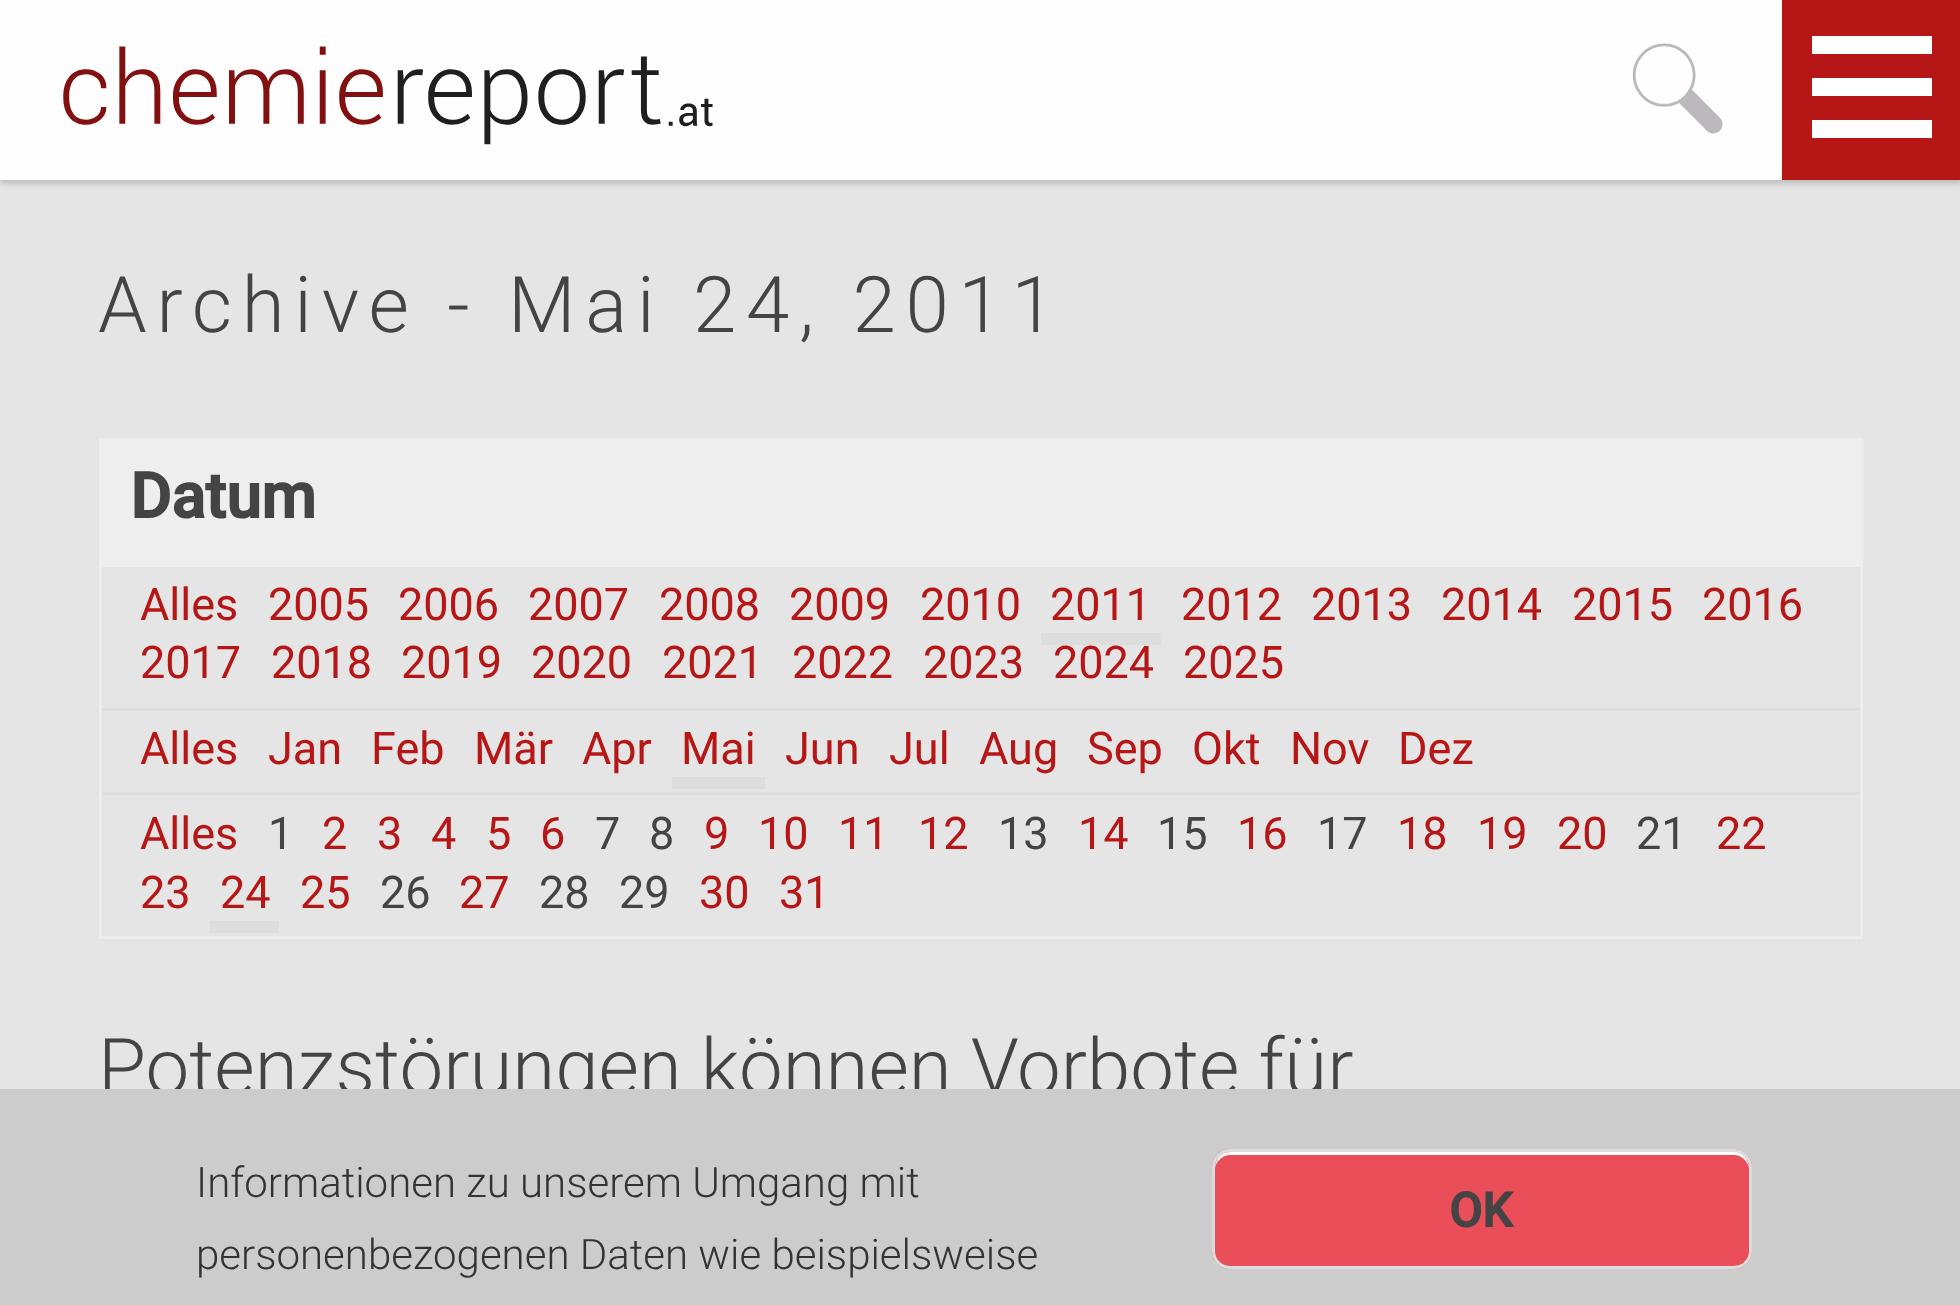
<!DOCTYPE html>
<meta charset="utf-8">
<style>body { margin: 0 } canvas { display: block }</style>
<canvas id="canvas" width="1960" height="1305"></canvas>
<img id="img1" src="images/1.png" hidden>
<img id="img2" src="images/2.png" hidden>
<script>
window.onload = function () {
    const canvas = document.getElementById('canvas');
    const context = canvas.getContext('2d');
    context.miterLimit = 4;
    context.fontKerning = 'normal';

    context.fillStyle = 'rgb(229, 229, 229)';
    context.fillRect(0, 0, 1960, 1305);
    context.fillStyle = 'rgba(0, 0, 0, 0.2)';
    context.filter = 'blur(3px)';
    context.beginPath();
    context.rect(0, 3, 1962, 180);
    context.fill();
    context.filter = 'none';
    context.fillStyle = 'rgb(254, 254, 254)';
    context.fillRect(0, 0, 1782, 180);
    context.drawImage(document.getElementById('img1'), 63, 46, 650, 99);
    context.drawImage(document.getElementById('img2'), 1632, 43, 91, 91);
    context.fillStyle = 'rgb(182, 22, 21)';
    context.fillRect(1782, 0, 178, 180);
    context.fillStyle = 'rgb(255, 255, 255)';
    context.fillRect(1812, 36, 120, 18);
    context.fillRect(1812, 78, 120, 18);
    context.fillRect(1812, 120, 120, 18);
    context.fillStyle = 'rgb(238, 238, 238)';
    context.fillRect(99, 438, 1764, 126);
    context.strokeStyle = 'rgb(238, 238, 238)';
    context.lineWidth = 3;
    context.strokeRect(100.5, 565.5, 1761, 372);
    context.fillStyle = 'rgb(221, 221, 221)';
    context.fillRect(102, 708, 1758, 3);
    context.fillRect(1041, 633, 120, 12);
    context.fillRect(102, 792, 1758, 3);
    context.fillRect(672, 777, 93, 12);
    context.fillRect(210, 921, 69, 12);
    context.letterSpacing = '9.75px';
    context.font = '300 78px Roboto';
    context.fillStyle = 'rgb(68, 68, 68)';
    context.fillText('Archive - Mai 24, 2011', 98, 332);
    context.letterSpacing = '0px';
    context.font = 'bold 63px Roboto';
    context.fillText('Datum', 130, 518);
    context.font = '45px Roboto';
    context.fillStyle = 'rgb(182, 22, 21)';
    context.fillText('Alles', 140, 620);
    context.fillText('2005', 268, 620);
    context.fillText('2006', 398, 620);
    context.fillText('2007', 528, 620);
    context.fillText('2008', 659, 620);
    context.fillText('2009', 789, 620);
    context.fillText('2010', 920, 620);
    context.fillText('2011', 1050, 620);
    context.fillText('2012', 1181, 620);
    context.fillText('2013', 1311, 620);
    context.fillText('2014', 1441, 620);
    context.fillText('2015', 1572, 620);
    context.fillText('2016', 1702, 620);
    context.fillText('2017', 140, 678);
    context.fillText('2018', 271, 678);
    context.fillText('2019', 401, 678);
    context.fillText('2020', 531, 678);
    context.fillText('2021', 662, 678);
    context.fillText('2022', 792, 678);
    context.fillText('2023', 923, 678);
    context.fillText('2024', 1053, 678);
    context.fillText('2025', 1183, 678);
    context.fillText('Alles', 140, 764);
    context.fillText('Jan', 268, 764);
    context.fillText('Feb', 371, 764);
    context.fillText('Mär', 474, 764);
    context.fillText('Apr', 582, 764);
    context.fillText('Mai', 681, 764);
    context.fillText('Jun', 785, 764);
    context.fillText('Jul', 889, 764);
    context.fillText('Aug', 979, 764);
    context.fillText('Sep', 1087, 764);
    context.fillText('Okt', 1192, 764);
    context.fillText('Nov', 1290, 764);
    context.fillText('Dez', 1398, 764);
    context.fillText('Alles', 140, 849);
    context.fillStyle = 'rgb(68, 68, 68)';
    context.fillText('1', 268, 849);
    context.fillStyle = 'rgb(182, 22, 21)';
    context.fillText('2', 322, 849);
    context.fillText('3', 377, 849);
    context.fillText('4', 431, 849);
    context.fillText('5', 486, 849);
    context.fillText('6', 540, 849);
    context.fillStyle = 'rgb(68, 68, 68)';
    context.fillText('7', 595, 849);
    context.fillText('8', 649, 849);
    context.fillStyle = 'rgb(182, 22, 21)';
    context.fillText('9', 704, 849);
    context.fillText('10', 758, 849);
    context.fillText('11', 838, 849);
    context.fillText('12', 918, 849);
    context.fillStyle = 'rgb(68, 68, 68)';
    context.fillText('13', 998, 849);
    context.fillStyle = 'rgb(182, 22, 21)';
    context.fillText('14', 1078, 849);
    context.fillStyle = 'rgb(68, 68, 68)';
    context.fillText('15', 1157, 849);
    context.fillStyle = 'rgb(182, 22, 21)';
    context.fillText('16', 1237, 849);
    context.fillStyle = 'rgb(68, 68, 68)';
    context.fillText('17', 1317, 849);
    context.fillStyle = 'rgb(182, 22, 21)';
    context.fillText('18', 1397, 849);
    context.fillText('19', 1477, 849);
    context.fillText('20', 1557, 849);
    context.fillStyle = 'rgb(68, 68, 68)';
    context.fillText('21', 1636, 849);
    context.fillStyle = 'rgb(182, 22, 21)';
    context.fillText('22', 1716, 849);
    context.fillText('23', 140, 908);
    context.fillText('24', 220, 908);
    context.fillText('25', 300, 908);
    context.fillStyle = 'rgb(68, 68, 68)';
    context.fillText('26', 380, 908);
    context.fillStyle = 'rgb(182, 22, 21)';
    context.fillText('27', 459, 908);
    context.fillStyle = 'rgb(68, 68, 68)';
    context.fillText('28', 539, 908);
    context.fillText('29', 619, 908);
    context.fillStyle = 'rgb(182, 22, 21)';
    context.fillText('30', 699, 908);
    context.fillText('31', 779, 908);
    context.font = '300 78px Roboto';
    context.fillStyle = 'rgb(68, 68, 68)';
    context.fillText('Potenzstörungen können Vorbote für', 98, 1094);
    context.fillStyle = 'rgb(204, 204, 204)';
    context.fillRect(0, 1089, 1960, 216);
    context.font = '300 42px Roboto';
    context.fillStyle = 'rgb(51, 51, 51)';
    context.fillText('Informationen zu unserem Umgang mit', 196, 1197);
    context.fillText('personenbezogenen Daten wie beispielsweise', 196, 1269);
    context.fillStyle = 'rgb(234, 78, 89)';
    context.beginPath();
    context.roundRect(1212, 1149, 540, 120, 18);
    context.fill();
    context.fillStyle = 'rgb(255, 255, 255)';
    context.beginPath();
    context.moveTo(1230, 1155);
    context.lineTo(1734, 1155);
    context.bezierCurveTo(1742, 1155, 1749, 1162, 1749, 1170);
    context.bezierCurveTo(1749, 1162, 1746, 1154, 1737, 1152);
    context.lineTo(1230, 1152);
    context.bezierCurveTo(1219, 1152, 1215, 1161, 1215, 1170);
    context.bezierCurveTo(1215, 1162, 1222, 1155, 1230, 1155);
    context.closePath();
    context.fill();
    context.beginPath();
    context.roundRect(1213.5, 1150.5, 537, 117, 16.5);
    context.strokeStyle = 'rgb(220, 220, 220)';
    context.stroke();
    context.font = 'bold 48px Roboto';
    context.fillStyle = 'rgb(68, 68, 68)';
    context.fillText('OK', 1449, 1227);
};
</script>
